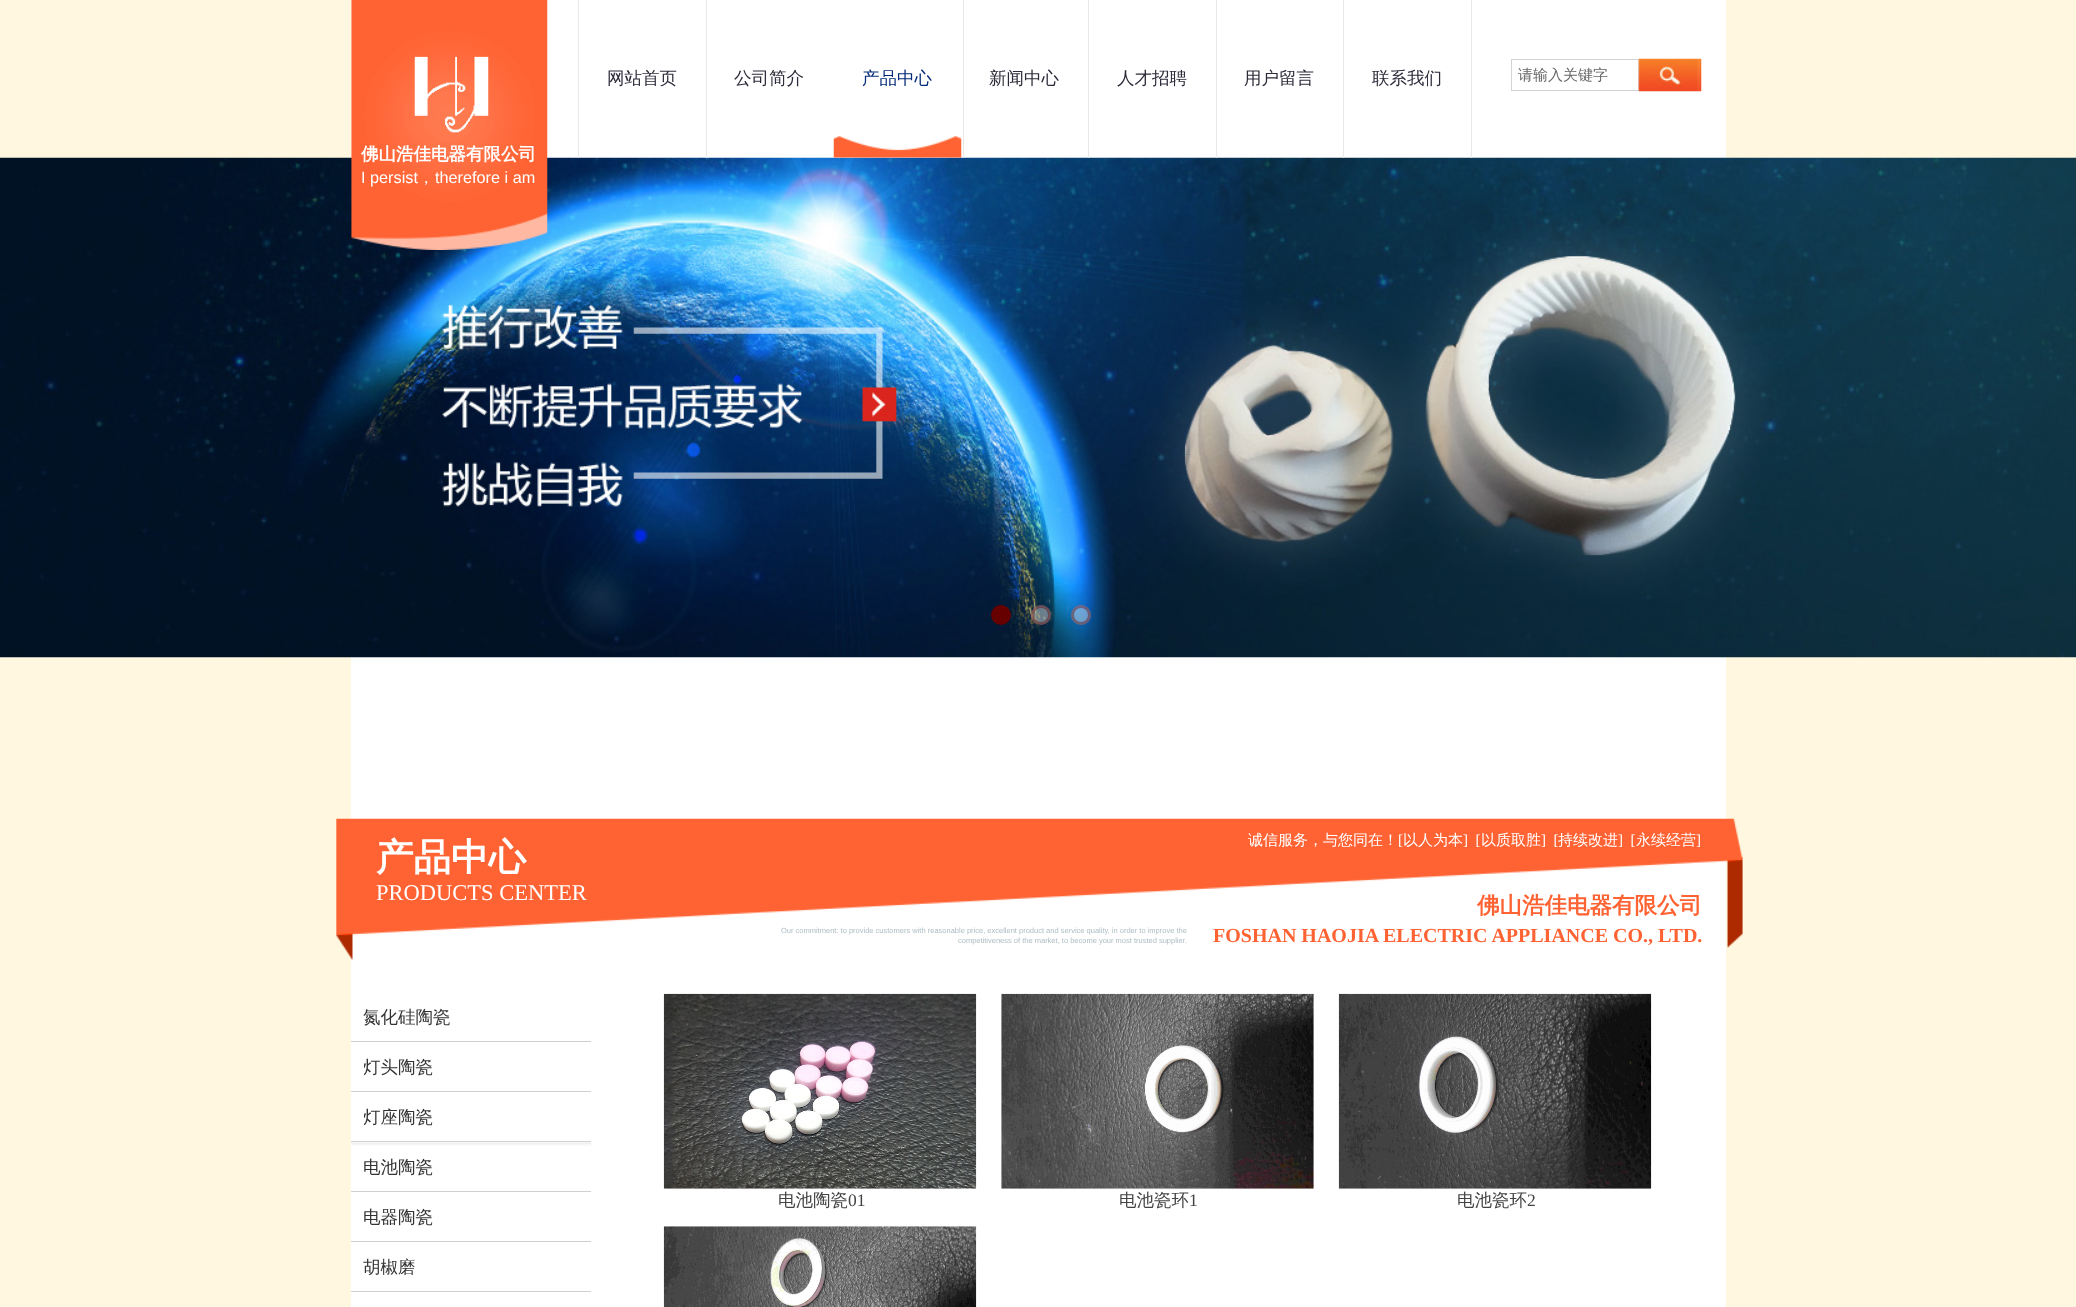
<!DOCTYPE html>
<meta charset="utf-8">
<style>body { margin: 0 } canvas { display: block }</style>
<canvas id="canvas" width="2076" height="1307"></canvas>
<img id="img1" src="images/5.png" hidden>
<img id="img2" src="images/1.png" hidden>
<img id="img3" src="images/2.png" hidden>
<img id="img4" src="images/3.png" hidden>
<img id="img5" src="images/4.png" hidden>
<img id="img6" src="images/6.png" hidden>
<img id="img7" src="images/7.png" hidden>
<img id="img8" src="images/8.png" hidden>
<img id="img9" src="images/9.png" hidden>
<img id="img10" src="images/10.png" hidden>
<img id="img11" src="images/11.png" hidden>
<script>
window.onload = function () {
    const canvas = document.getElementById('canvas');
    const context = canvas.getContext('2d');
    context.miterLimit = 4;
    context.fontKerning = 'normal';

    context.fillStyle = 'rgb(255, 247, 223)';
    context.fillRect(0, 0, 2076, 1307);
    context.fillStyle = 'rgb(255, 255, 255)';
    context.fillRect(351, 0, 1375, 1307);
    context.drawImage(document.getElementById('img1'), 0, 157, 2076, 501);
    context.drawImage(document.getElementById('img2'), 351, 0, 197, 250);
    context.fillStyle = 'rgb(232, 232, 232)';
    context.fillRect(706, 0, 1, 158);
    context.fillRect(578, 0, 1, 158);
    context.fillRect(963, 0, 1, 158);
    context.fillRect(834, 157, 1, 1);
    context.fillRect(1216, 0, 1, 158);
    context.fillRect(1088, 0, 1, 158);
    context.fillRect(1471, 0, 1, 158);
    context.fillRect(1343, 0, 1, 158);
    context.drawImage(document.getElementById('img3'), 414, 56, 75, 77);
    context.drawImage(document.getElementById('img4'), 833, 0, 129, 158);
    context.strokeStyle = 'rgb(211, 211, 211)';
    context.strokeRect(1511.5, 59.5, 127, 31);
    context.drawImage(document.getElementById('img5'), 1638, 58, 64, 34);
    context.fillStyle = 'rgb(102, 0, 0)';
    context.beginPath();
    context.arc(1001, 615, 8.5, 0, 2 * Math.PI);
    context.fill();
    context.strokeStyle = 'rgb(102, 0, 0)';
    context.lineWidth = 3;
    context.stroke();
    context.fillStyle = 'rgba(255, 255, 255, 0.4)';
    context.beginPath();
    context.arc(1041, 615, 10, 0, 2 * Math.PI);
    context.fill();
    context.beginPath();
    context.arc(1041, 615, 8.5, 0, 2 * Math.PI);
    context.strokeStyle = 'rgba(102, 0, 0, 0.4)';
    context.stroke();
    context.beginPath();
    context.arc(1081, 615, 10, 0, 2 * Math.PI);
    context.fill();
    context.beginPath();
    context.arc(1081, 615, 8.5, 0, 2 * Math.PI);
    context.stroke();
    context.drawImage(document.getElementById('img6'), 336, 818, 1407, 143);
    context.fillStyle = 'rgb(208, 208, 208)';
    context.fillRect(351, 1041, 240, 1);
    context.fillRect(351, 1091, 240, 1);
    context.fillRect(351, 1141, 240, 1);
    context.drawImage(document.getElementById('img7'), 351, 1142, 241, 4);
    context.fillRect(351, 1191, 240, 1);
    context.fillRect(351, 1241, 240, 1);
    context.fillRect(351, 1291, 240, 1);
    context.drawImage(document.getElementById('img8'), 663, 993, 314, 196);
    context.drawImage(document.getElementById('img9'), 1001, 993, 313, 196);
    context.drawImage(document.getElementById('img10'), 1338, 993, 314, 196);
    context.drawImage(document.getElementById('img11'), 663, 1226, 314, 81);
    context.font = '500 17.5px WenQuanYi Zen Hei';
    context.fillStyle = 'rgb(45, 42, 57)';
    context.fillText('网站首页', 607, 84);
    context.fillText('公司简介', 734, 84);
    context.fillStyle = 'rgb(3, 41, 120)';
    context.fillText('产品中心', 862, 84);
    context.fillStyle = 'rgb(45, 42, 57)';
    context.fillText('新闻中心', 989, 84);
    context.fillText('人才招聘', 1117, 84);
    context.fillText('用户留言', 1244, 84);
    context.fillText('联系我们', 1372, 84);
    context.font = '500 15px WenQuanYi Zen Hei';
    context.fillStyle = 'rgb(102, 102, 102)';
    context.fillText('请输入关键字', 1518, 80);
    context.font = 'bold 17.5px WenQuanYi Zen Hei';
    context.fillStyle = 'rgb(255, 255, 255)';
    context.fillText('佛山浩佳电器有限公司', 361, 160);
    context.font = '16.25px Liberation Sans';
    context.fillText('I persist', 361, 183);
    context.font = '500 16.25px WenQuanYi Zen Hei';
    context.fillText('，', 418, 183);
    context.font = '16.25px Liberation Sans';
    context.fillText('therefore i am', 435, 183);
    context.font = 'bold 37.5px WenQuanYi Zen Hei';
    context.fillText('产品中心', 376, 870);
    context.font = '22.5px Liberation Serif';
    context.fillText('PRODUCTS CENTER', 376, 900);
    context.font = '500 15px WenQuanYi Zen Hei';
    context.fillText('诚信服务，与您同在！', 1248, 845);
    context.font = '15px Liberation Serif';
    context.fillText('[', 1398, 845);
    context.font = '500 15px WenQuanYi Zen Hei';
    context.fillText('以人为本', 1403, 845);
    context.font = '15px Liberation Serif';
    context.fillText(']  [', 1463, 845);
    context.font = '500 15px WenQuanYi Zen Hei';
    context.fillText('以质取胜', 1481, 845);
    context.font = '15px Liberation Serif';
    context.fillText(']  [', 1541, 845);
    context.font = '500 15px WenQuanYi Zen Hei';
    context.fillText('持续改进', 1558, 845);
    context.font = '15px Liberation Serif';
    context.fillText(']  [', 1618, 845);
    context.font = '500 15px WenQuanYi Zen Hei';
    context.fillText('永续经营', 1636, 845);
    context.font = '15px Liberation Serif';
    context.fillText(']', 1696, 845);
    context.font = '7.5px Liberation Sans';
    context.fillStyle = 'rgb(173, 189, 195)';
    context.fillText('Our commitment: to provide customers with reasonable price, excellent product and service quality, in order to improve the', 781, 933);
    context.fillText('competitiveness of the market, to become your most trusted supplier.', 958, 943);
    context.font = 'bold 22.5px WenQuanYi Zen Hei';
    context.fillStyle = 'rgb(255, 99, 51)';
    context.fillText('佛山浩佳电器有限公司', 1477, 913);
    context.font = 'bold 20px Liberation Serif';
    context.fillText('FOSHAN HAOJIA ELECTRIC APPLIANCE CO., LTD.', 1213, 942);
    context.font = '500 17.5px WenQuanYi Zen Hei';
    context.fillStyle = 'rgb(51, 51, 51)';
    context.fillText('氮化硅陶瓷', 363, 1023);
    context.save();
    context.beginPath();
    context.rect(364, 1043, 222, 48);
    context.clip();
    context.fillText('灯头陶瓷', 363, 1073);
    context.restore();
    context.save();
    context.beginPath();
    context.rect(364, 1093, 222, 48);
    context.clip();
    context.fillText('灯座陶瓷', 363, 1123);
    context.restore();
    context.fillText('电池陶瓷', 363, 1173);
    context.fillText('电器陶瓷', 363, 1223);
    context.fillText('胡椒磨', 363, 1273);
    context.fillStyle = 'rgb(67, 67, 67)';
    context.fillText('电池陶瓷', 778, 1206);
    context.font = '17.5px Liberation Serif';
    context.fillText('01', 848, 1206);
    context.font = '500 17.5px WenQuanYi Zen Hei';
    context.fillText('电池瓷环', 1119, 1206);
    context.font = '17.5px Liberation Serif';
    context.fillText('1', 1189, 1206);
    context.font = '500 17.5px WenQuanYi Zen Hei';
    context.fillText('电池瓷环', 1457, 1206);
    context.font = '17.5px Liberation Serif';
    context.fillText('2', 1527, 1206);
};
</script>
